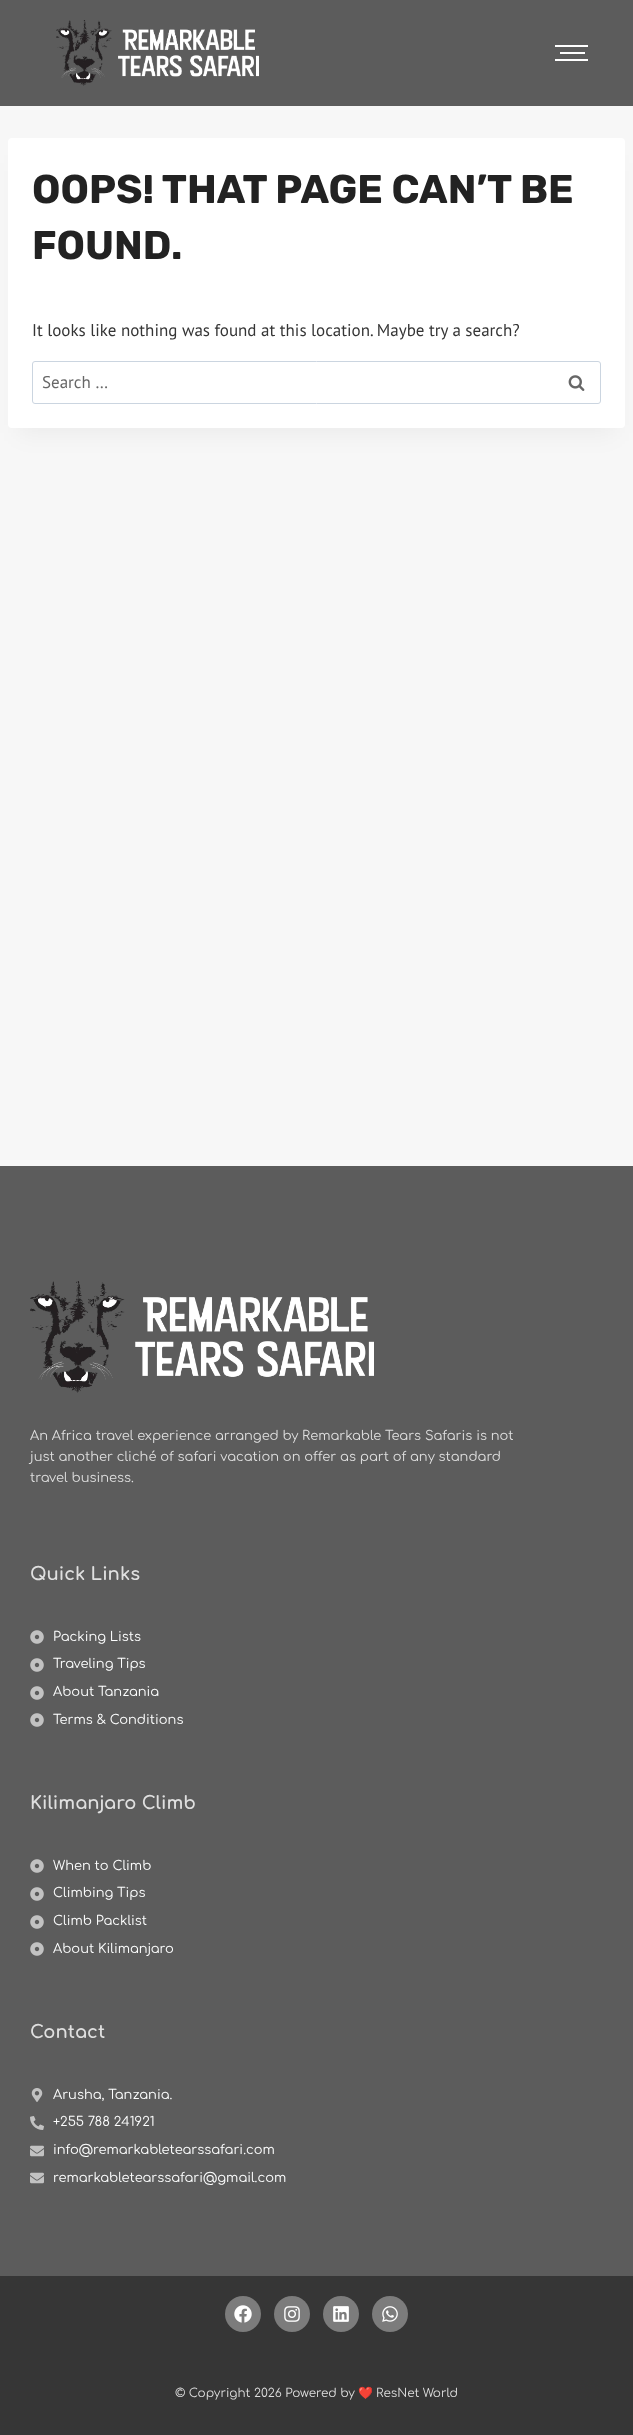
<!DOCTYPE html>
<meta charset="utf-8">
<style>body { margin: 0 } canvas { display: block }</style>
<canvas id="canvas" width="633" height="2435"></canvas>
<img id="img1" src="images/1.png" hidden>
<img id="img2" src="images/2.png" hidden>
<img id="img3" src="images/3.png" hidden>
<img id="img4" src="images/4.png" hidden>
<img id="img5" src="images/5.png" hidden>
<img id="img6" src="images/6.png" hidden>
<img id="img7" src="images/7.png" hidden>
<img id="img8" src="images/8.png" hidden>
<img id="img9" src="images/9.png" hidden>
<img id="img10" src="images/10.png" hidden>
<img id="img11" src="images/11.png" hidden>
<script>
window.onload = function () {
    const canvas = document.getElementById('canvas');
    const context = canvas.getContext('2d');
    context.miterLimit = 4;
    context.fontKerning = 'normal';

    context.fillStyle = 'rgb(247, 247, 247)';
    context.fillRect(0, 0, 633, 2435);
    context.fillStyle = 'rgb(92, 92, 92)';
    context.fillRect(0, 0, 633, 106);
    context.drawImage(document.getElementById('img1'), 56, 20, 203, 66);
    context.fillStyle = 'rgb(255, 255, 255)';
    context.fillRect(555, 45, 33, 2);
    context.fillRect(560, 52, 25, 2);
    context.fillRect(555, 59, 33, 2);
    context.fillStyle = 'rgba(0, 0, 0, 0.05)';
    context.filter = 'blur(12.5px)';
    context.beginPath();
    context.rect(18, 163, 597, 270);
    context.fill();
    context.filter = 'none';
    context.fillStyle = 'rgb(255, 255, 255)';
    context.beginPath();
    context.roundRect(8, 138, 617, 290, 4);
    context.fill();
    context.beginPath();
    context.roundRect(32.5, 361.5, 568, 42, 2.5);
    context.strokeStyle = 'rgb(203, 213, 224)';
    context.stroke();
    context.drawImage(document.getElementById('img2'), 568, 375, 17, 16);
    context.fillStyle = 'rgb(92, 92, 92)';
    context.fillRect(0, 1166, 633, 1110);
    context.drawImage(document.getElementById('img3'), 30, 1281, 344, 112);
    context.drawImage(document.getElementById('img4'), 30, 1630, 14, 14);
    context.drawImage(document.getElementById('img4'), 30, 1658, 14, 14);
    context.drawImage(document.getElementById('img4'), 30, 1686, 14, 14);
    context.drawImage(document.getElementById('img4'), 30, 1713, 14, 14);
    context.drawImage(document.getElementById('img4'), 30, 1859, 14, 14);
    context.drawImage(document.getElementById('img4'), 30, 1887, 14, 14);
    context.drawImage(document.getElementById('img4'), 30, 1915, 14, 14);
    context.drawImage(document.getElementById('img4'), 30, 1942, 14, 14);
    context.drawImage(document.getElementById('img5'), 31, 2088, 12, 14);
    context.drawImage(document.getElementById('img6'), 30, 2116, 14, 14);
    context.drawImage(document.getElementById('img7'), 30, 2145, 14, 12);
    context.drawImage(document.getElementById('img7'), 30, 2172, 14, 12);
    context.fillStyle = 'rgb(54, 54, 54)';
    context.fillRect(0, 2276, 633, 159);
    context.fillStyle = 'rgb(124, 124, 124)';
    context.beginPath();
    context.arc(243, 2314, 18, 0, 2 * Math.PI);
    context.fill();
    context.drawImage(document.getElementById('img8'), 234, 2305, 18, 18);
    context.beginPath();
    context.arc(292, 2314, 18, 0, 2 * Math.PI);
    context.fill();
    context.drawImage(document.getElementById('img9'), 284, 2306, 16, 16);
    context.beginPath();
    context.arc(341, 2314, 18, 0, 2 * Math.PI);
    context.fill();
    context.drawImage(document.getElementById('img10'), 333, 2306, 16, 16);
    context.beginPath();
    context.arc(390, 2314, 18, 0, 2 * Math.PI);
    context.fill();
    context.drawImage(document.getElementById('img11'), 382, 2306, 16, 16);
    context.font = 'bold 40px Rubik';
    context.fillStyle = 'rgb(34, 34, 34)';
    context.fillText('OOPS! THAT PAGE CAN’T BE', 32, 203);
    context.fillText('FOUND.', 32, 259);
    context.font = '17px PT Sans';
    context.fillStyle = 'rgb(53, 53, 53)';
    context.fillText('It looks like nothing was found at this location. Maybe try a search?', 32, 336);
    context.fillStyle = 'rgb(103, 103, 103)';
    context.fillText('Search …', 42, 388);
    context.font = '13px Comfortaa';
    context.fillStyle = 'rgb(223, 223, 223)';
    context.fillText('An Africa travel experience arranged by Remarkable Tears Safaris is not', 30, 1440);
    context.fillText('just another cliché of safari vacation on offer as part of any standard', 30, 1461);
    context.fillText('travel business.', 30, 1482);
    context.font = 'bold 18px Comfortaa';
    context.fillText('Quick Links', 30, 1580);
    context.font = '13px Comfortaa';
    context.fillStyle = 'rgb(254, 255, 255)';
    context.fillText('Packing Lists', 53, 1641);
    context.fillText('Traveling Tips', 53, 1668);
    context.fillText('About Tanzania', 53, 1696);
    context.fillText('Terms & Conditions', 53, 1724);
    context.font = 'bold 18px Comfortaa';
    context.fillStyle = 'rgb(223, 223, 223)';
    context.fillText('Kilimanjaro Climb', 30, 1809);
    context.font = '13px Comfortaa';
    context.fillStyle = 'rgb(254, 255, 255)';
    context.fillText('When to Climb', 53, 1870);
    context.fillText('Climbing Tips', 53, 1897);
    context.fillText('Climb Packlist', 53, 1925);
    context.fillText('About Kilimanjaro', 53, 1953);
    context.font = 'bold 18px Comfortaa';
    context.fillStyle = 'rgb(223, 223, 223)';
    context.fillText('Contact', 30, 2038);
    context.font = '13px Comfortaa';
    context.fillStyle = 'rgb(254, 255, 255)';
    context.fillText('Arusha, Tanzania.', 53, 2099);
    context.fillText('+255 788 241921', 53, 2126);
    context.fillText('info@remarkabletearssafari.com', 53, 2154);
    context.fillText('remarkabletearssafari@gmail.com', 53, 2182);
    context.font = '12px Comfortaa';
    context.fillStyle = 'rgb(223, 223, 223)';
    context.fillText('© Copyright 2026 Powered by', 175, 2397);
    context.font = '12px Noto Color Emoji';
    context.fillText('❤️', 358, 2397);
    context.font = '12px Comfortaa';
    context.fillText('ResNet World', 376, 2397);
};
</script>
